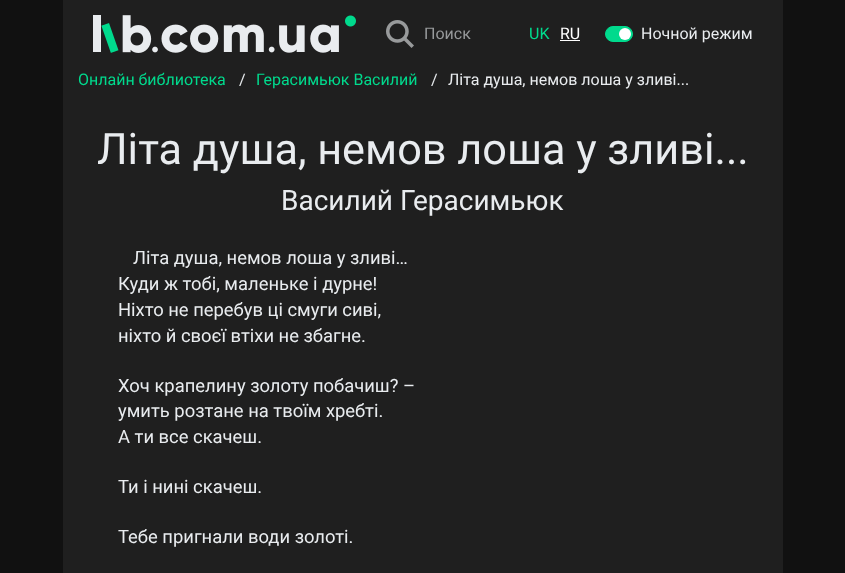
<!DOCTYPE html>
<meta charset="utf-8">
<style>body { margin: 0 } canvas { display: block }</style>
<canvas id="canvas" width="845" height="573"></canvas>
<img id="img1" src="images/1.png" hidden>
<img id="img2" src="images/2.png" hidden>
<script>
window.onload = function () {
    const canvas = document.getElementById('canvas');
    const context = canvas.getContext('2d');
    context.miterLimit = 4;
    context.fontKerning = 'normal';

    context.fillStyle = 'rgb(17, 17, 17)';
    context.fillRect(0, 0, 845, 573);
    context.fillStyle = 'rgb(31, 31, 31)';
    context.fillRect(63, 0, 720, 573);
    context.drawImage(document.getElementById('img1'), 93, 15, 263, 38);
    context.drawImage(document.getElementById('img2'), 386, 20, 28, 28);
    context.fillStyle = 'rgb(255, 255, 255)';
    context.fillRect(560, 40, 20, 1);
    context.fillStyle = 'rgb(0, 218, 141)';
    context.beginPath();
    context.roundRect(605.5, 26.5, 27, 15, 7.5);
    context.fill();
    context.strokeStyle = 'rgb(0, 218, 141)';
    context.stroke();
    context.fillStyle = 'rgb(255, 255, 255)';
    context.beginPath();
    context.arc(625, 34, 6, 0, 2 * Math.PI);
    context.fill();
    context.font = '16px Roboto';
    context.fillStyle = 'rgb(152, 154, 156)';
    context.fillText('Поиск', 424, 39);
    context.fillStyle = 'rgb(0, 218, 141)';
    context.fillText('UK', 529, 39);
    context.fillStyle = 'rgb(255, 255, 255)';
    context.fillText('RU', 560, 39);
    context.fillStyle = 'rgb(233, 236, 239)';
    context.fillText('Ночной режим', 641, 39);
    context.fillStyle = 'rgb(0, 218, 141)';
    context.fillText('Онлайн библиотека', 78, 85);
    context.fillStyle = 'rgb(233, 236, 239)';
    context.fillText('/', 239, 85);
    context.fillStyle = 'rgb(0, 218, 141)';
    context.fillText('Герасимьюк Василий', 256, 85);
    context.fillStyle = 'rgb(233, 236, 239)';
    context.fillText('/', 431, 85);
    context.fillText('Літа душа, немов лоша у зливі...', 448, 85);
    context.font = '43.25px Roboto';
    context.fillText('Літа душа, немов лоша у зливі...', 97, 164);
    context.font = '28px Roboto';
    context.fillText('Василий Герасимьюк', 281, 210);
    context.font = '18.4px Roboto';
    context.fillText('Літа душа, немов лоша у зливі…', 133, 264);
    context.fillText('Куди ж тобі, маленьке і дурне!', 118, 290);
    context.fillText('Ніхто не перебув ці смуги сиві,', 118, 316);
    context.fillText('ніхто й своєї втіхи не збагне.', 118, 342);
    context.fillText('Хоч крапелину золоту побачиш? –', 118, 392);
    context.fillText('умить розтане на твоїм хребті.', 118, 417);
    context.fillText('А ти все скачеш.', 118, 443);
    context.fillText('Ти і нині скачеш.', 118, 493);
    context.fillText('Тебе пригнали води золоті.', 118, 543);
};
</script>
